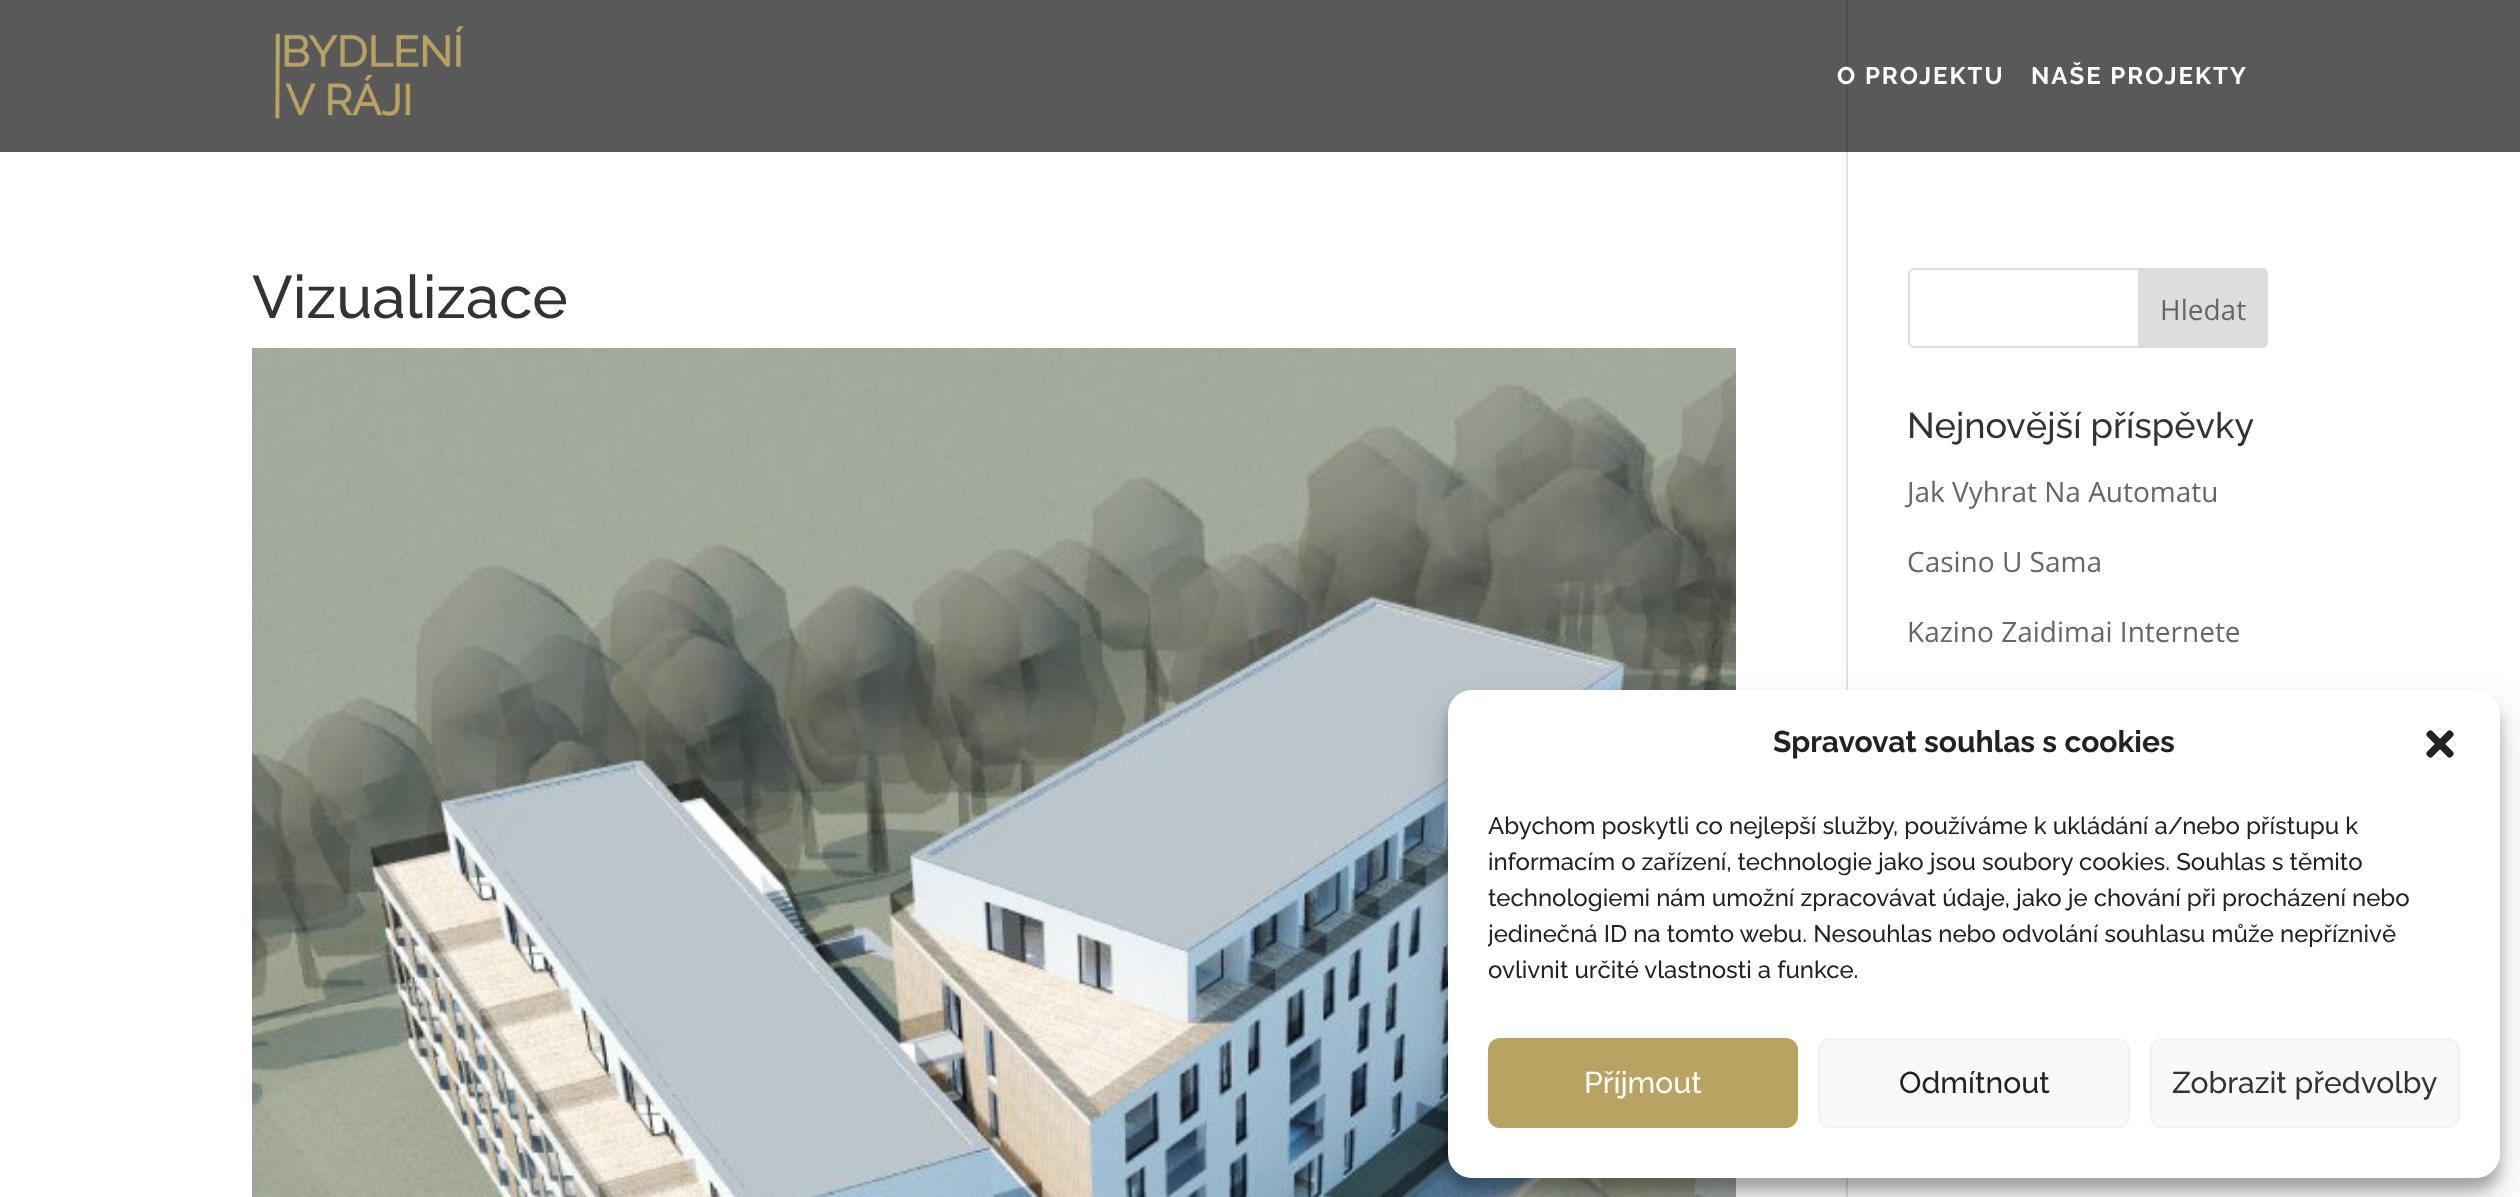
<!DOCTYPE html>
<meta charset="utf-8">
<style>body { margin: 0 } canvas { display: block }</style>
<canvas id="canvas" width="2520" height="1197"></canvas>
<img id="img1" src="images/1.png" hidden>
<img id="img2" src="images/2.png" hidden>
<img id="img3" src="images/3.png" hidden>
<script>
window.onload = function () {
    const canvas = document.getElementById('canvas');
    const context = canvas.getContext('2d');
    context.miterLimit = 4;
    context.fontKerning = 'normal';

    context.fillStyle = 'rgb(255, 255, 255)';
    context.fillRect(0, 0, 2520, 1197);
    context.fillStyle = 'rgb(89, 89, 89)';
    context.fillRect(0, 0, 2520, 152);
    context.drawImage(document.getElementById('img1'), 275, 26, 189, 93);
    context.fillStyle = 'rgb(226, 226, 226)';
    context.fillRect(1846, 152, 2, 1045);
    context.fillStyle = 'rgb(79, 79, 79)';
    context.fillRect(1846, 0, 2, 152);
    context.drawImage(document.getElementById('img2'), 252, 348, 1484, 849);
    context.beginPath();
    context.roundRect(1909, 269, 358, 78, 5);
    context.strokeStyle = 'rgb(221, 221, 221)';
    context.lineWidth = 2;
    context.stroke();
    context.fillStyle = 'rgb(221, 221, 221)';
    context.beginPath();
    context.roundRect(2139, 269, 128, 78, [0, 5, 5, 0]);
    context.fill();
    context.stroke();
    context.fillStyle = 'rgba(0, 0, 0, 0.23)';
    context.filter = 'blur(6px)';
    context.beginPath();
    context.roundRect(1448, 702, 1052, 488, 24);
    context.fill();
    context.filter = 'none';
    context.fillStyle = 'rgba(0, 0, 0, 0.19)';
    context.filter = 'blur(20px)';
    context.beginPath();
    context.roundRect(1448, 710, 1052, 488, 24);
    context.fill();
    context.filter = 'none';
    context.fillStyle = 'rgb(255, 255, 255)';
    context.beginPath();
    context.roundRect(1448, 690, 1052, 488, 24);
    context.fill();
    context.drawImage(document.getElementById('img3'), 2426, 730, 28, 28);
    context.fillStyle = 'rgb(184, 163, 98)';
    context.beginPath();
    context.roundRect(1489, 1039, 308, 88, 11);
    context.fill();
    context.strokeStyle = 'rgb(184, 163, 98)';
    context.stroke();
    context.fillStyle = 'rgb(249, 249, 249)';
    context.beginPath();
    context.roundRect(1819, 1039, 310, 88, 11);
    context.fill();
    context.strokeStyle = 'rgb(242, 242, 242)';
    context.stroke();
    context.beginPath();
    context.roundRect(2151, 1039, 308, 88, 11);
    context.fill();
    context.stroke();
    context.letterSpacing = '2px';
    context.font = 'bold 24px Raleway';
    context.fillStyle = 'rgb(255, 255, 255)';
    context.fillText('O PROJEKTU', 1837, 84);
    context.fillText('NAŠE PROJEKTY', 2031, 84);
    context.letterSpacing = '0px';
    context.font = '500 60px Raleway';
    context.fillStyle = 'rgb(51, 51, 51)';
    context.fillText('Vizualizace', 252, 318);
    context.font = '28px Open Sans';
    context.fillStyle = 'rgb(102, 102, 102)';
    context.fillText('Hledat', 2160, 320);
    context.font = '500 36px Raleway';
    context.fillStyle = 'rgb(51, 51, 51)';
    context.fillText('Nejnovější příspěvky', 1907, 438);
    context.font = '28px Open Sans';
    context.fillStyle = 'rgb(102, 102, 102)';
    context.fillText('Jak Vyhrat Na Automatu', 1907, 502);
    context.fillText('Casino U Sama', 1907, 572);
    context.fillText('Kazino Zaidimai Internete', 1907, 642);
    context.font = 'bold 30px Raleway';
    context.fillStyle = 'rgb(34, 34, 34)';
    context.fillText('Spravovat souhlas s cookies', 1773, 752);
    context.font = '500 24px Raleway';
    context.fillText('Abychom poskytli co nejlepší služby, používáme k ukládání a/nebo přístupu k', 1488, 834);
    context.fillText('informacím o zařízení, technologie jako jsou soubory cookies. Souhlas s těmito', 1488, 870);
    context.fillText('technologiemi nám umožní zpracovávat údaje, jako je chování při procházení nebo', 1488, 906);
    context.save();
    context.beginPath();
    context.rect(1488, 808, 972, 190);
    context.clip();
    context.fillText('jedinečná ID na tomto webu. Nesouhlas nebo odvolání souhlasu může nepříznivě', 1488, 942);
    context.restore();
    context.fillText('ovlivnit určité vlastnosti a funkce.', 1488, 978);
    context.font = '500 30px Raleway';
    context.fillStyle = 'rgb(255, 255, 255)';
    context.fillText('Příjmout', 1584, 1093);
    context.fillStyle = 'rgb(34, 34, 34)';
    context.fillText('Odmítnout', 1899, 1093);
    context.fillStyle = 'rgb(51, 51, 51)';
    context.fillText('Zobrazit předvolby', 2172, 1093);
};
</script>
